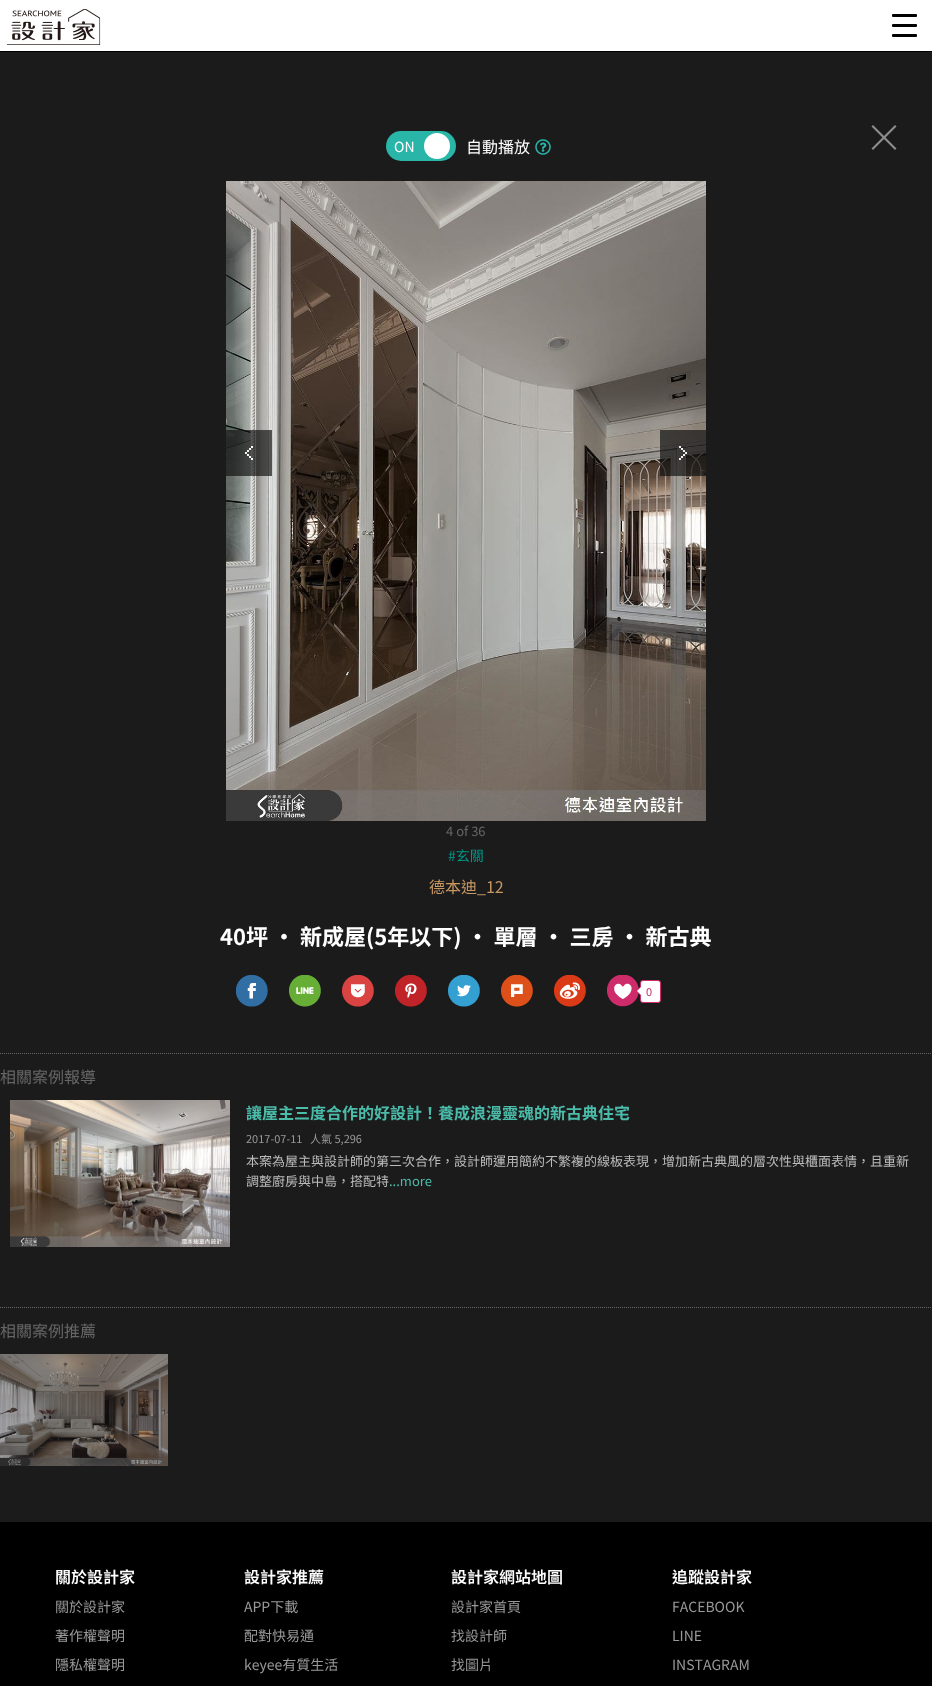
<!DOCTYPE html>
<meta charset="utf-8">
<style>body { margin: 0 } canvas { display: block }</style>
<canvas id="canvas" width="932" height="1686"></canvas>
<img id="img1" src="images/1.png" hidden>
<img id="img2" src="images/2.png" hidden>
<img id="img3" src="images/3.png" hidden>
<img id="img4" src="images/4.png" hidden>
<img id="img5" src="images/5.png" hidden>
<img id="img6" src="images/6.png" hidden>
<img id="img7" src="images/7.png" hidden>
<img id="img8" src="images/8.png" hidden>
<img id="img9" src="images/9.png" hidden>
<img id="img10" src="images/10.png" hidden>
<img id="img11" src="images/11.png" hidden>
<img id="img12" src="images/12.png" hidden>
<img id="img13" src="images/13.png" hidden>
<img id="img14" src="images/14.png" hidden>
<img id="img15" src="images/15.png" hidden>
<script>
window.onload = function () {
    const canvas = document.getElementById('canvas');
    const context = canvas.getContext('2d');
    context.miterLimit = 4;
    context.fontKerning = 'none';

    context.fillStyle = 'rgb(0, 0, 0)';
    context.fillRect(0, 0, 932, 1686);
    context.fillStyle = 'rgb(255, 255, 255)';
    context.fillRect(0, 0, 932, 51);
    context.drawImage(document.getElementById('img1'), 6, 9, 95, 36);
    context.fillStyle = 'rgb(0, 0, 0)';
    context.beginPath();
    context.roundRect(892, 24, 25, 3, 1);
    context.fill();
    context.beginPath();
    context.roundRect(892, 14, 25, 3, 1);
    context.fill();
    context.beginPath();
    context.roundRect(892, 34, 25, 3, 1);
    context.fill();
    context.fillStyle = 'rgb(27, 27, 28)';
    context.fillRect(0, 52, 932, 1470);
    context.fillStyle = 'rgb(41, 181, 168)';
    context.beginPath();
    context.roundRect(386, 131, 70, 30, 15);
    context.fill();
    context.fillStyle = 'rgb(255, 255, 255)';
    context.beginPath();
    context.arc(437, 146, 13, 0, 2 * Math.PI);
    context.fill();
    context.drawImage(document.getElementById('img2'), 535, 139, 16, 16);
    context.fillStyle = 'rgb(141, 141, 142)';
    context.beginPath();
    context.moveTo(895, 125);
    context.lineTo(896.5, 126.5);
    context.lineTo(873, 150);
    context.lineTo(871.5, 148.5);
    context.closePath();
    context.fill();
    context.beginPath();
    context.moveTo(871.5, 126.5);
    context.lineTo(873, 125);
    context.lineTo(896.5, 148.5);
    context.lineTo(895, 150);
    context.closePath();
    context.fill();
    context.drawImage(document.getElementById('img3'), 226, 181, 480, 640);
    context.drawImage(document.getElementById('img4'), 226, 430, 46, 46);
    context.drawImage(document.getElementById('img5'), 660, 430, 46, 46);
    context.drawImage(document.getElementById('img6'), 236, 975, 32, 32);
    context.drawImage(document.getElementById('img7'), 289, 975, 32, 32);
    context.drawImage(document.getElementById('img8'), 342, 975, 32, 32);
    context.drawImage(document.getElementById('img9'), 395, 975, 32, 32);
    context.drawImage(document.getElementById('img10'), 448, 975, 32, 32);
    context.drawImage(document.getElementById('img11'), 501, 975, 32, 32);
    context.drawImage(document.getElementById('img12'), 554, 975, 32, 32);
    context.drawImage(document.getElementById('img13'), 607, 975, 32, 32);
    context.fillStyle = 'rgb(255, 255, 255)';
    context.beginPath();
    context.roundRect(640.5, 980.5, 20, 22, 2.5);
    context.fill();
    context.strokeStyle = 'rgb(206, 43, 107)';
    context.stroke();
    context.fillStyle = 'rgb(206, 43, 107)';
    context.beginPath();
    context.moveTo(640, 987);
    context.lineTo(640, 995);
    context.lineTo(636, 991);
    context.closePath();
    context.fill();
    context.fillStyle = 'rgb(255, 255, 255)';
    context.beginPath();
    context.moveTo(641, 987);
    context.lineTo(641, 995);
    context.lineTo(637, 991);
    context.closePath();
    context.fill();
    context.beginPath();
    context.moveTo(0, 1053.5);
    context.lineTo(932, 1053.5);
    context.strokeStyle = 'rgb(102, 102, 102)';
    context.setLineDash([1, 1]);
    context.stroke();
    context.drawImage(document.getElementById('img14'), 10, 1100, 220, 147);
    context.beginPath();
    context.moveTo(0, 1307.5);
    context.lineTo(932, 1307.5);
    context.stroke();
    context.drawImage(document.getElementById('img15'), 0, 1354, 168, 112);
    context.font = '14px Noto Sans TC';
    context.fillText('ON', 394, 152);
    context.font = '16px Noto Sans TC';
    context.fillText('自動播放', 466, 153);
    context.font = '13px Noto Sans TC';
    context.fillStyle = 'rgb(102, 102, 102)';
    context.fillText('4 of 36', 446, 836);
    context.font = '14px Noto Sans TC';
    context.fillStyle = 'rgb(0, 150, 136)';
    context.fillText('#玄關', 448, 861);
    context.font = '16px Noto Sans TC';
    context.fillStyle = 'rgb(200, 152, 99)';
    context.fillText('德本迪_12', 429, 893);
    context.font = 'bold 22px Noto Sans TC';
    context.fillStyle = 'rgb(255, 255, 255)';
    context.fillText('40坪 ‧ 新成屋(5年以下) ‧ 單層 ‧ 三房 ‧ 新古典', 220, 945);
    context.font = '11px Noto Sans TC';
    context.fillStyle = 'rgb(206, 43, 107)';
    context.fillText('0', 646, 996);
    context.font = '16px Noto Sans TC';
    context.fillStyle = 'rgb(102, 102, 102)';
    context.fillText('相關案例報導', 0, 1083);
    context.font = 'bold 16px Noto Sans TC';
    context.fillStyle = 'rgb(75, 188, 170)';
    context.fillText('讓屋主三度合作的好設計！養成浪漫靈魂的新古典住宅', 246, 1119);
    context.font = '11px Noto Sans TC';
    context.fillStyle = 'rgb(153, 153, 153)';
    context.fillText('2017-07-11', 246, 1143);
    context.fillText('人氣 5,296', 310, 1143);
    context.font = '13px Noto Sans TC';
    context.fillStyle = 'rgb(187, 187, 187)';
    context.fillText('本案為屋主與設計師的第三次合作，設計師運用簡約不繁複的線板表現，增加新古典風的層次性與櫃面表情，且重新', 246, 1166);
    context.fillText('調整廚房與中島，搭配特', 246, 1186);
    context.fillStyle = 'rgb(75, 188, 170)';
    context.fillText('...more', 389, 1186);
    context.font = '16px Noto Sans TC';
    context.fillStyle = 'rgb(102, 102, 102)';
    context.fillText('相關案例推薦', 0, 1337);
    context.font = '600 16px Noto Sans TC';
    context.fillStyle = 'rgb(255, 255, 255)';
    context.fillText('關於設計家', 55, 1583);
    context.font = '14px Noto Sans TC';
    context.fillStyle = 'rgb(153, 153, 153)';
    context.fillText('關於設計家', 55, 1612);
    context.fillText('著作權聲明', 55, 1641);
    context.fillText('隱私權聲明', 55, 1670);
    context.font = '600 16px Noto Sans TC';
    context.fillStyle = 'rgb(255, 255, 255)';
    context.fillText('設計家推薦', 244, 1583);
    context.font = '14px Noto Sans TC';
    context.fillStyle = 'rgb(153, 153, 153)';
    context.fillText('APP下載', 244, 1612);
    context.fillText('配對快易通', 244, 1641);
    context.fillText('keyee有質生活', 244, 1670);
    context.font = '600 16px Noto Sans TC';
    context.fillStyle = 'rgb(255, 255, 255)';
    context.fillText('設計家網站地圖', 451, 1583);
    context.font = '14px Noto Sans TC';
    context.fillStyle = 'rgb(153, 153, 153)';
    context.fillText('設計家首頁', 451, 1612);
    context.fillText('找設計師', 451, 1641);
    context.fillText('找圖片', 451, 1670);
    context.font = '600 16px Noto Sans TC';
    context.fillStyle = 'rgb(255, 255, 255)';
    context.fillText('追蹤設計家', 672, 1583);
    context.font = '14px Noto Sans TC';
    context.fillStyle = 'rgb(153, 153, 153)';
    context.fillText('FACEBOOK', 672, 1612);
    context.fillText('LINE', 672, 1641);
    context.fillText('INSTAGRAM', 672, 1670);
};
</script>
